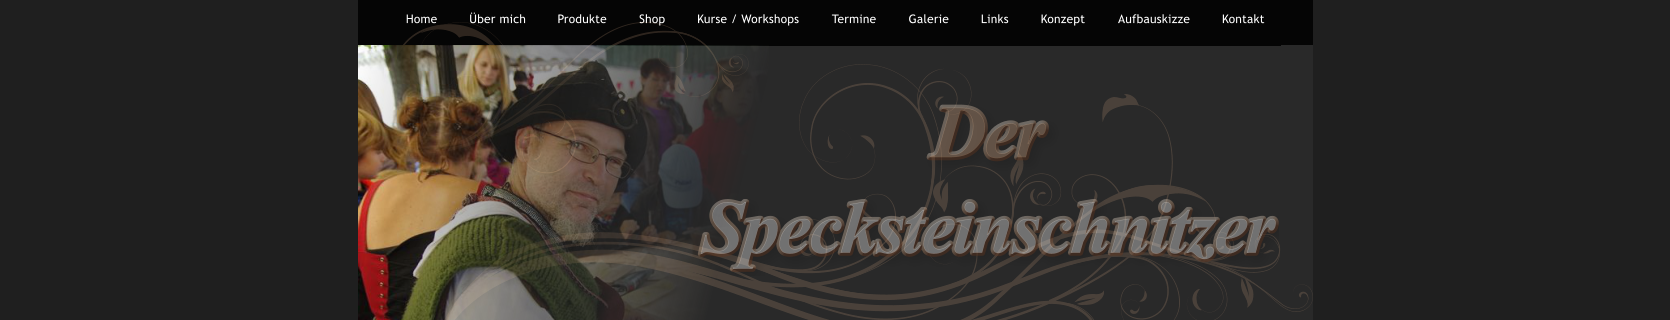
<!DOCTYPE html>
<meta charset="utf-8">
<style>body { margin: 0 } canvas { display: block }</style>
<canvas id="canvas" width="1670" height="320"></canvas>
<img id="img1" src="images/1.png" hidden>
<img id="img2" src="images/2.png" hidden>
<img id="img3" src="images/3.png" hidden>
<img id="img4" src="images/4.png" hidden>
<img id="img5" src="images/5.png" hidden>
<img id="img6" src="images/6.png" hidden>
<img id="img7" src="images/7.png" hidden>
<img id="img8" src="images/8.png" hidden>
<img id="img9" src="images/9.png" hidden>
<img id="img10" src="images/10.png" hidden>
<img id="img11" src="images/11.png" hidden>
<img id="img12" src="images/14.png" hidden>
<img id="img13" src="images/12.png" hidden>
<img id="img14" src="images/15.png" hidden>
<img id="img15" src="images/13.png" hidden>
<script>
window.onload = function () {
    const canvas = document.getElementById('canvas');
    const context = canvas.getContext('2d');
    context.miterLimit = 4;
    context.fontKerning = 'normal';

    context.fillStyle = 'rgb(31, 31, 31)';
    context.fillRect(0, 0, 1670, 320);
    context.fillStyle = 'rgb(5, 5, 5)';
    context.fillRect(358, 0, 955, 45);
    context.fillStyle = 'rgb(41, 41, 41)';
    context.fillRect(358, 45, 955, 275);
    context.drawImage(document.getElementById('img1'), 390, 14, 63, 32);
    context.drawImage(document.getElementById('img2'), 453, 12, 89, 34);
    context.drawImage(document.getElementById('img3'), 542, 14, 81, 32);
    context.drawImage(document.getElementById('img4'), 623, 14, 58, 32);
    context.drawImage(document.getElementById('img5'), 681, 14, 134, 32);
    context.drawImage(document.getElementById('img6'), 815, 14, 77, 32);
    context.drawImage(document.getElementById('img7'), 892, 14, 73, 32);
    context.drawImage(document.getElementById('img8'), 965, 14, 60, 32);
    context.drawImage(document.getElementById('img9'), 1025, 14, 76, 32);
    context.drawImage(document.getElementById('img10'), 1101, 14, 105, 32);
    context.drawImage(document.getElementById('img11'), 1206, 14, 75, 32);
    context.drawImage(document.getElementById('img12'), 444, 64, 869, 256);
    context.drawImage(document.getElementById('img13'), 358, 22, 391, 159);
    context.drawImage(document.getElementById('img14'), 697, 104, 582, 172);
    context.drawImage(document.getElementById('img15'), 358, 45, 411, 275);
};
</script>
